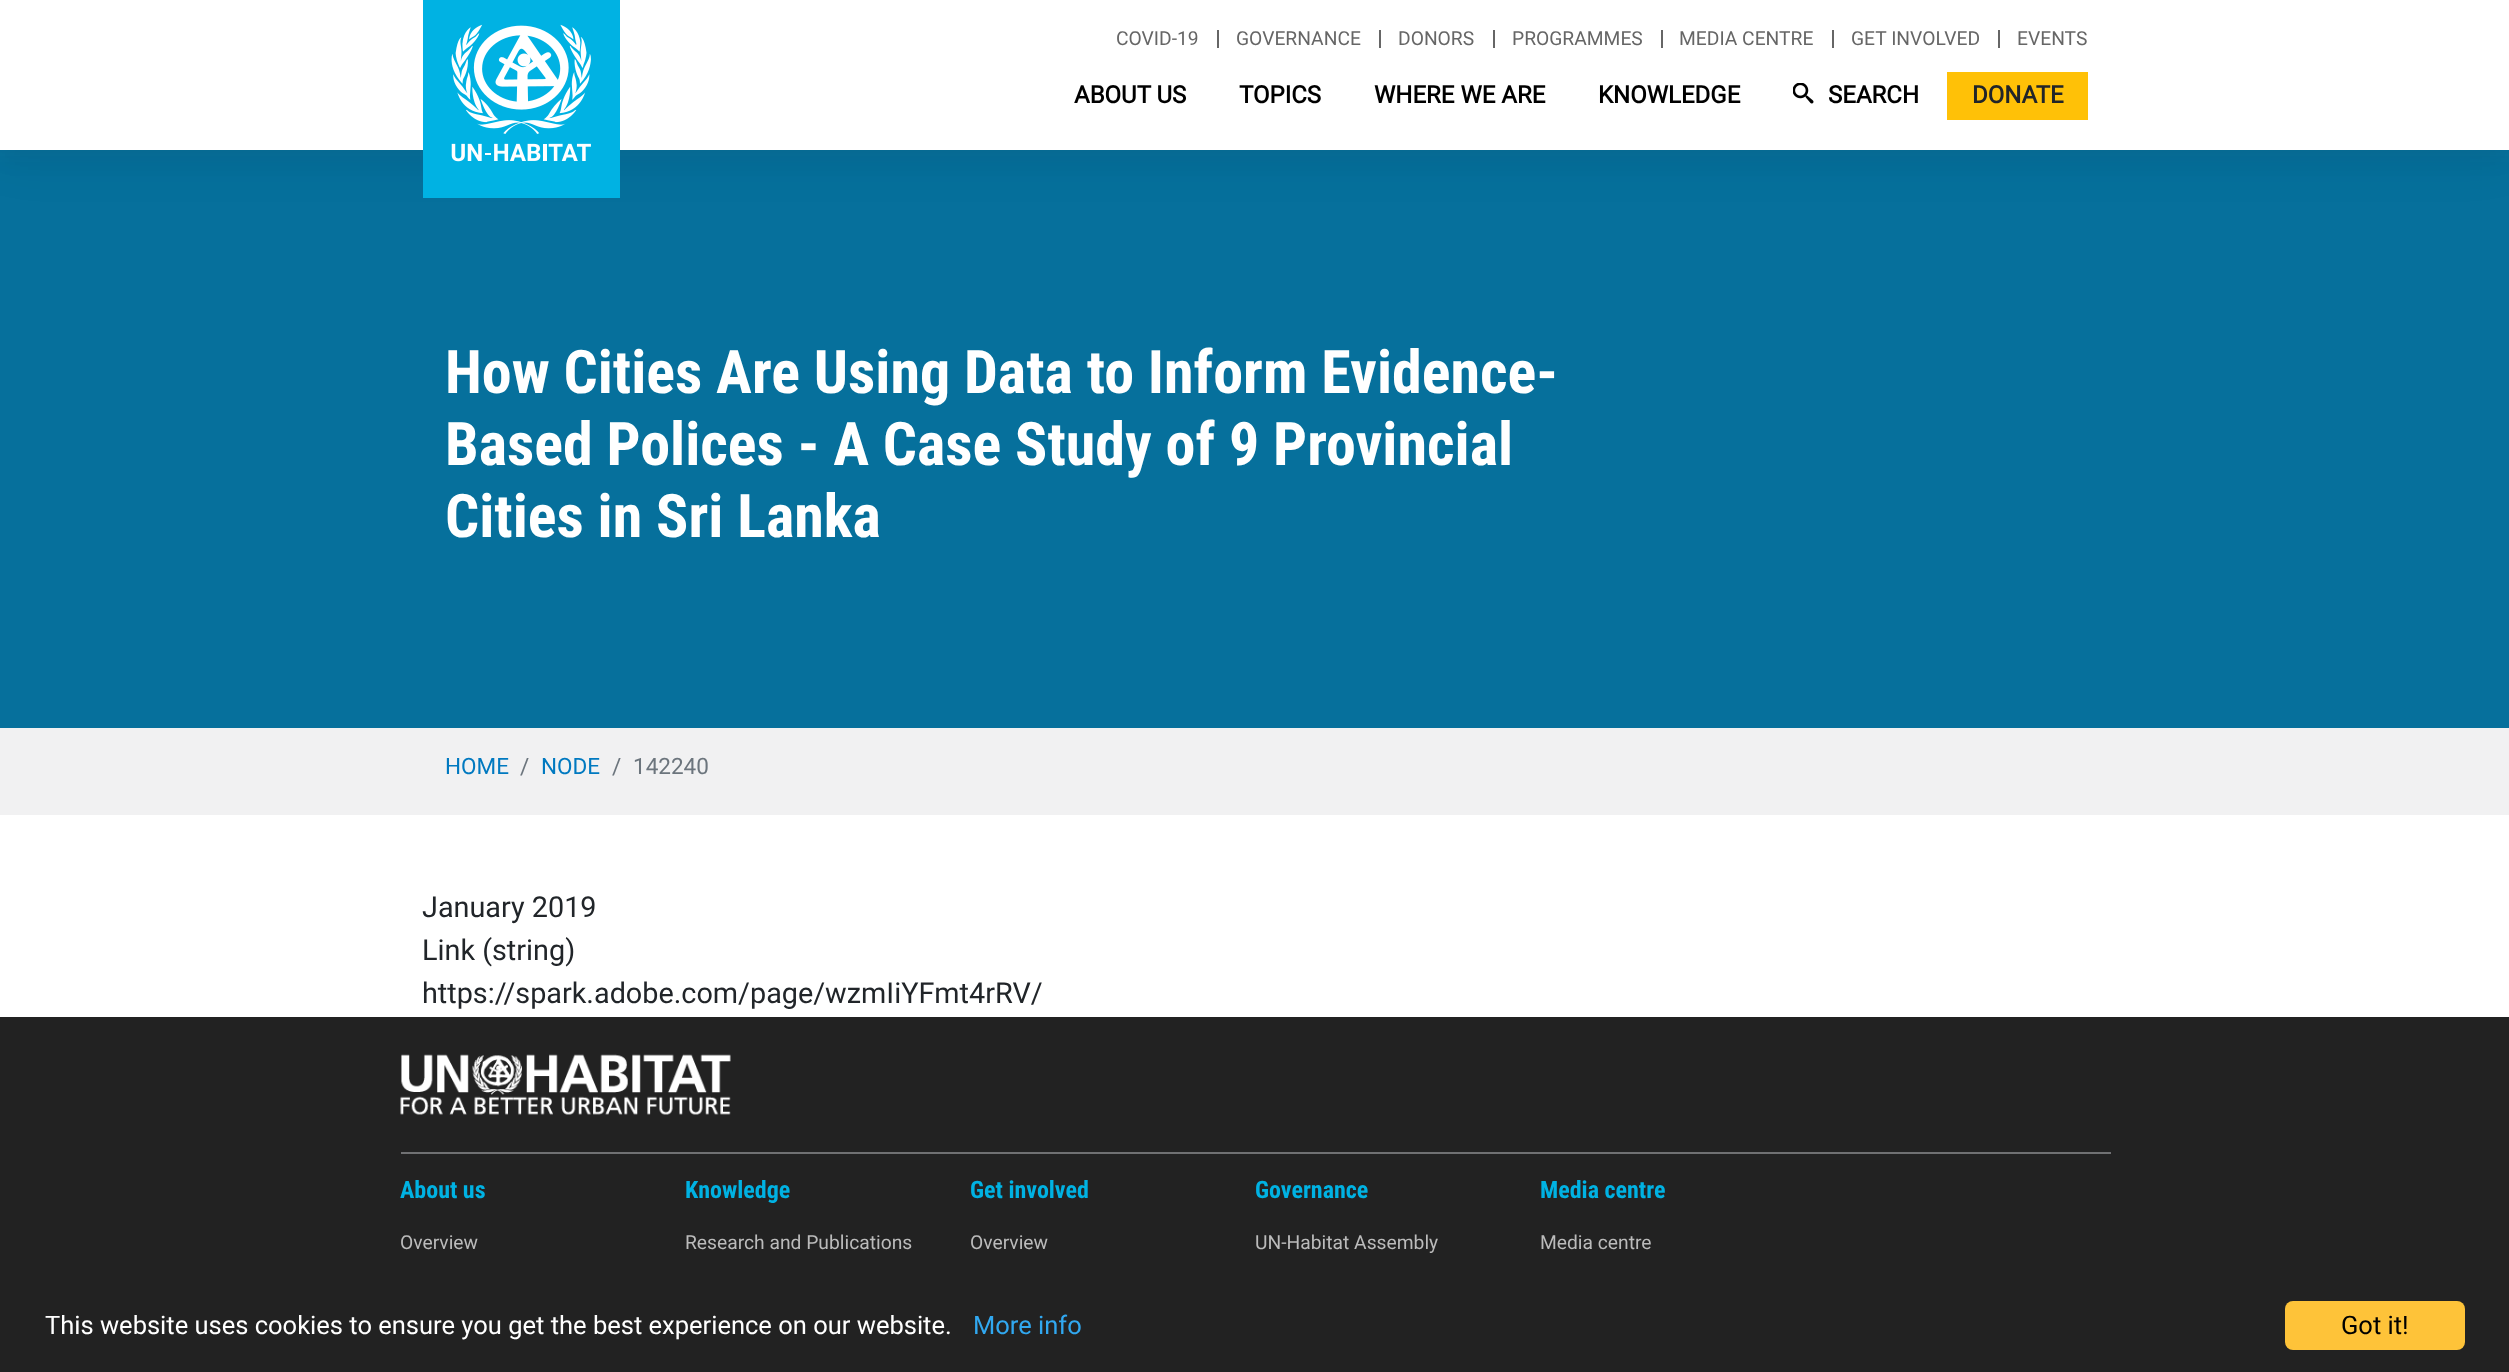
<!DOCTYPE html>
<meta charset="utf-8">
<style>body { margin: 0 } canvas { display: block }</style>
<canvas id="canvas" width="2509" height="1372"></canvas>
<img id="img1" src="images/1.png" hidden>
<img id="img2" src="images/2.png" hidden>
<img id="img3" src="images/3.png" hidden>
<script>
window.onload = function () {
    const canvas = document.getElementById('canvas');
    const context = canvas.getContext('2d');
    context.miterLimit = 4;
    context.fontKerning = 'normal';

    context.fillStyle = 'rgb(255, 255, 255)';
    context.fillRect(0, 0, 2509, 1372);
    context.fillStyle = 'rgb(6, 112, 156)';
    context.fillRect(0, 150, 2509, 578);
    context.fillStyle = 'rgba(17, 17, 26, 0.05)';
    context.filter = 'blur(24px)';
    context.beginPath();
    context.rect(0, 12, 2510, 150);
    context.fill();
    context.filter = 'none';
    context.filter = 'blur(12px)';
    context.beginPath();
    context.rect(0, 6, 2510, 150);
    context.fill();
    context.filter = 'none';
    context.fillStyle = 'rgb(255, 255, 255)';
    context.fillRect(0, 0, 2509, 150);
    context.fillStyle = 'rgb(102, 102, 102)';
    context.fillRect(1217, 30, 2, 18);
    context.fillRect(1379, 30, 2, 18);
    context.fillRect(1493, 30, 2, 18);
    context.fillRect(1661, 30, 2, 18);
    context.fillRect(1832, 30, 2, 18);
    context.fillRect(1998, 30, 2, 18);
    context.fillStyle = 'rgb(0, 178, 227)';
    context.fillRect(423, 0, 197, 198);
    context.drawImage(document.getElementById('img1'), 451, 24, 140, 138);
    context.drawImage(document.getElementById('img2'), 1793, 83, 21, 21);
    context.fillStyle = 'rgb(255, 193, 7)';
    context.fillRect(1947, 72, 141, 48);
    context.fillStyle = 'rgb(241, 241, 242)';
    context.fillRect(0, 728, 2509, 87);
    context.fillStyle = 'rgb(34, 34, 34)';
    context.fillRect(0, 1017, 2509, 355);
    context.fillStyle = 'rgb(112, 113, 115)';
    context.fillRect(401, 1152, 1710, 2);
    context.drawImage(document.getElementById('img3'), 400, 1054, 331, 61);
    context.fillStyle = 'rgb(254, 195, 57)';
    context.beginPath();
    context.roundRect(2285, 1301, 180, 49, 8);
    context.fill();
    context.font = '19.25px Roboto';
    context.fillStyle = 'rgb(102, 102, 102)';
    context.fillText('COVID-19', 1116, 45);
    context.fillText('GOVERNANCE', 1236, 45);
    context.fillText('DONORS', 1398, 45);
    context.fillText('PROGRAMMES', 1512, 45);
    context.fillText('MEDIA CENTRE', 1679, 45);
    context.fillText('GET INVOLVED', 1851, 45);
    context.fillText('EVENTS', 2017, 45);
    context.font = 'bold 24px Roboto';
    context.fillStyle = 'rgb(0, 0, 0)';
    context.fillText('ABOUT US', 1074, 103);
    context.fillText('TOPICS', 1239, 103);
    context.fillText('WHERE WE ARE', 1374, 103);
    context.fillText('KNOWLEDGE', 1598, 103);
    context.fillText('SEARCH', 1828, 103);
    context.fillStyle = 'rgb(33, 37, 41)';
    context.fillText('DONATE', 1972, 103);
    context.font = 'bold 60px Roboto Condensed';
    context.fillStyle = 'rgb(255, 255, 255)';
    context.fillText('How Cities Are Using Data to Inform Evidence-', 445, 393);
    context.fillText('Based Polices - A Case Study of 9 Provincial', 445, 465);
    context.fillText('Cities in Sri Lanka', 445, 537);
    context.font = '22.5px Roboto';
    context.fillStyle = 'rgb(0, 121, 192)';
    context.fillText('HOME', 445, 774);
    context.fillStyle = 'rgb(108, 117, 125)';
    context.fillText('/', 520, 774);
    context.fillStyle = 'rgb(0, 121, 192)';
    context.fillText('NODE', 541, 774);
    context.fillStyle = 'rgb(108, 117, 125)';
    context.fillText('/', 612, 774);
    context.fillText('142240', 633, 774);
    context.font = '28.8px Roboto';
    context.fillStyle = 'rgb(33, 37, 41)';
    context.fillText('January 2019', 422, 917);
    context.fillText('Link (string)', 422, 960);
    context.fillText('https://spark.adobe.com/page/wzmIiYFmt4rRV/', 422, 1003);
    context.font = 'bold 24px Roboto Condensed';
    context.fillStyle = 'rgb(0, 178, 227)';
    context.fillText('About us', 400, 1198);
    context.font = '19.25px Roboto';
    context.fillStyle = 'rgb(187, 187, 187)';
    context.fillText('Overview', 400, 1249);
    context.font = 'bold 24px Roboto Condensed';
    context.fillStyle = 'rgb(0, 178, 227)';
    context.fillText('Knowledge', 685, 1198);
    context.font = '19.25px Roboto';
    context.fillStyle = 'rgb(187, 187, 187)';
    context.fillText('Research and Publications', 685, 1249);
    context.font = 'bold 24px Roboto Condensed';
    context.fillStyle = 'rgb(0, 178, 227)';
    context.fillText('Get involved', 970, 1198);
    context.font = '19.25px Roboto';
    context.fillStyle = 'rgb(187, 187, 187)';
    context.fillText('Overview', 970, 1249);
    context.font = 'bold 24px Roboto Condensed';
    context.fillStyle = 'rgb(0, 178, 227)';
    context.fillText('Governance', 1255, 1198);
    context.font = '19.25px Roboto';
    context.fillStyle = 'rgb(187, 187, 187)';
    context.fillText('UN-Habitat Assembly', 1255, 1249);
    context.font = 'bold 24px Roboto Condensed';
    context.fillStyle = 'rgb(0, 178, 227)';
    context.fillText('Media centre', 1540, 1198);
    context.font = '19.25px Roboto';
    context.fillStyle = 'rgb(187, 187, 187)';
    context.fillText('Media centre', 1540, 1249);
    context.font = '25.5px Roboto';
    context.fillStyle = 'rgb(255, 255, 255)';
    context.fillText('This website uses cookies to ensure you get the best experience on our website.', 45, 1334);
    context.fillStyle = 'rgb(49, 168, 240)';
    context.fillText('More info', 973, 1334);
    context.fillStyle = 'rgb(0, 0, 0)';
    context.fillText('Got it!', 2341, 1334);
};
</script>
